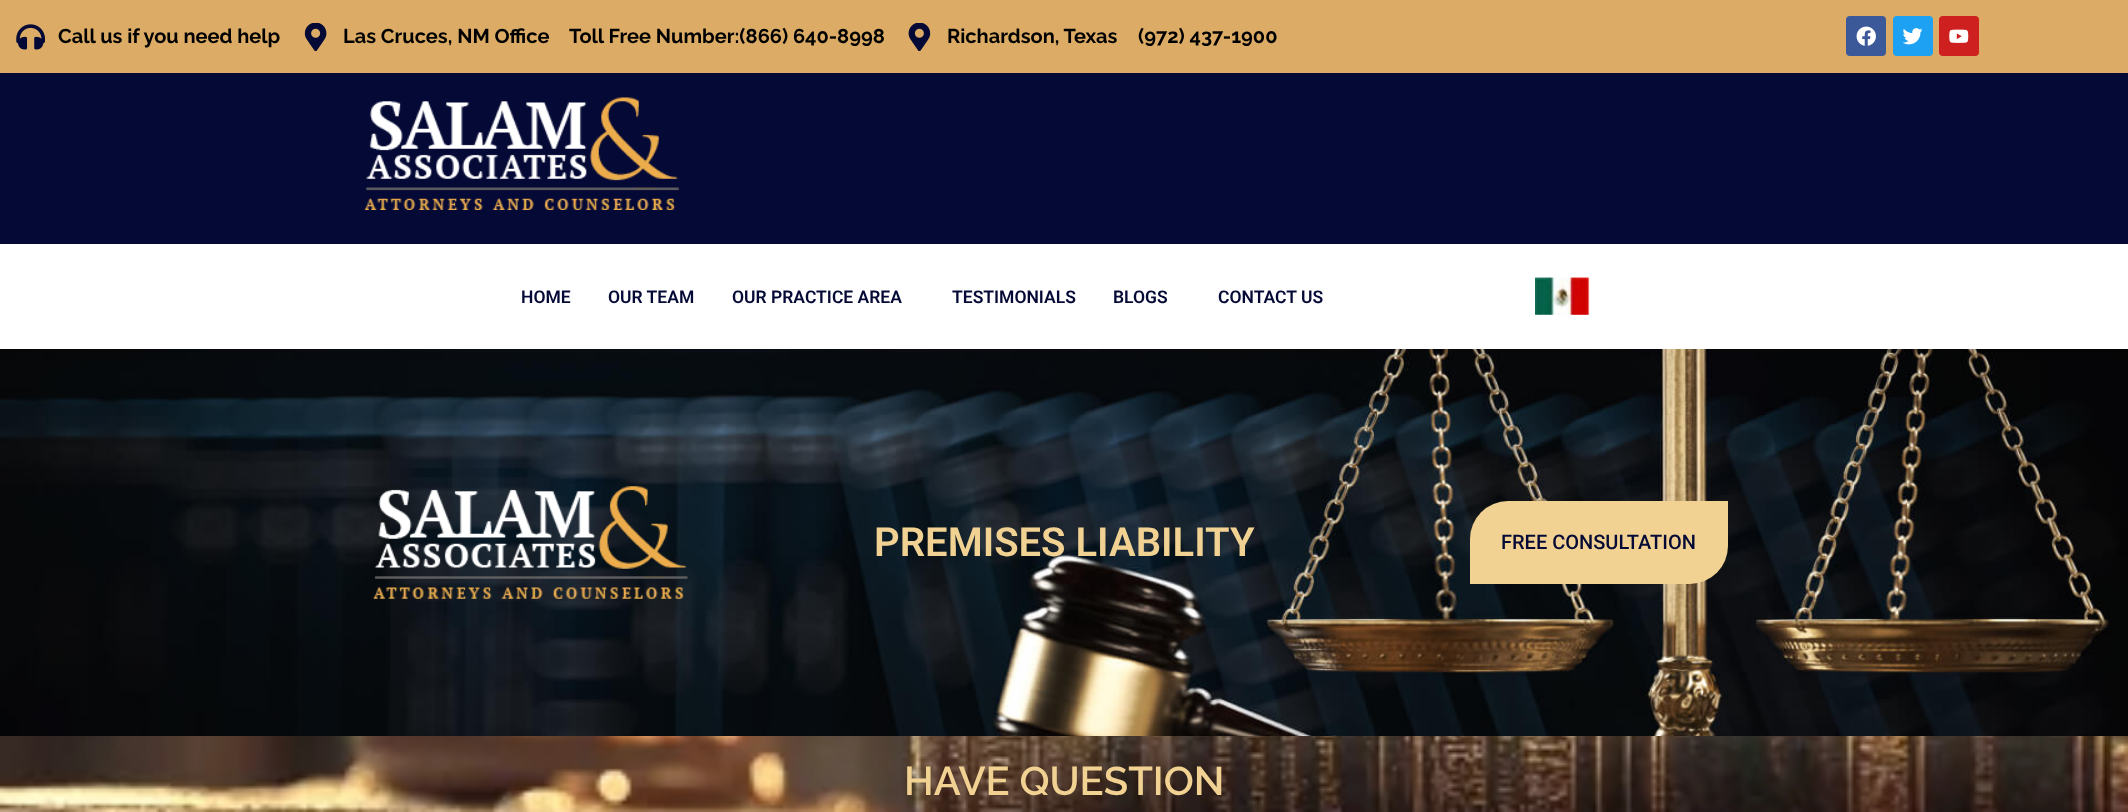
<!DOCTYPE html>
<meta charset="utf-8">
<style>body { margin: 0 } canvas { display: block }</style>
<canvas id="canvas" width="2128" height="812"></canvas>
<img id="img1" src="images/1.png" hidden>
<img id="img2" src="images/2.png" hidden>
<img id="img3" src="images/3.png" hidden>
<img id="img4" src="images/4.png" hidden>
<img id="img5" src="images/5.png" hidden>
<img id="img6" src="images/6.png" hidden>
<img id="img7" src="images/7.png" hidden>
<img id="img8" src="images/8.png" hidden>
<img id="img9" src="images/9.png" hidden>
<img id="img10" src="images/10.png" hidden>
<img id="img11" src="images/11.png" hidden>
<script>
window.onload = function () {
    const canvas = document.getElementById('canvas');
    const context = canvas.getContext('2d');
    context.miterLimit = 4;
    context.fontKerning = 'normal';

    context.fillStyle = 'rgb(255, 255, 255)';
    context.fillRect(0, 0, 2128, 812);
    context.fillStyle = 'rgb(220, 172, 102)';
    context.fillRect(0, 0, 2128, 73);
    context.drawImage(document.getElementById('img1'), 16, 24, 29, 26);
    context.drawImage(document.getElementById('img2'), 304, 23, 23, 28);
    context.drawImage(document.getElementById('img3'), 908, 23, 23, 28);
    context.fillStyle = 'rgb(59, 89, 152)';
    context.beginPath();
    context.roundRect(1846, 16, 40, 40, 4);
    context.fill();
    context.drawImage(document.getElementById('img4'), 1856, 26, 20, 20);
    context.fillStyle = 'rgb(29, 161, 242)';
    context.beginPath();
    context.roundRect(1893, 16, 40, 40, 4);
    context.fill();
    context.drawImage(document.getElementById('img5'), 1903, 28, 20, 17);
    context.fillStyle = 'rgb(205, 32, 31)';
    context.beginPath();
    context.roundRect(1939, 16, 40, 40, 4);
    context.fill();
    context.drawImage(document.getElementById('img6'), 1949, 29, 20, 14);
    context.fillStyle = 'rgb(5, 9, 53)';
    context.fillRect(0, 73, 2128, 171);
    context.drawImage(document.getElementById('img7'), 364, 97, 315, 113);
    context.drawImage(document.getElementById('img8'), 1535, 277, 55, 38);
    context.drawImage(document.getElementById('img9'), 0, 349, 2128, 387);
    context.drawImage(document.getElementById('img10'), 373, 486, 315, 113);
    context.fillStyle = 'rgb(241, 210, 146)';
    context.beginPath();
    context.roundRect(1470, 501, 258, 83, [38, 0, 38, 0]);
    context.fill();
    context.drawImage(document.getElementById('img11'), 0, 736, 2128, 76);
    context.font = 'bold 20px Raleway';
    context.fillStyle = 'rgb(0, 0, 0)';
    context.fillText('Call us if you need help', 58, 43);
    context.fillText('Las Cruces, NM Office', 343, 43);
    context.fillText('Toll Free Number:(866) 640-8998', 569, 43);
    context.fillText('Richardson, Texas', 947, 43);
    context.fillText('(972) 437-1900', 1138, 43);
    context.font = '600 17.5px Roboto';
    context.fillStyle = 'rgb(5, 9, 53)';
    context.fillText('HOME', 521, 303);
    context.fillText('OUR TEAM', 608, 303);
    context.fillText('OUR PRACTICE AREA', 732, 303);
    context.fillText('TESTIMONIALS', 952, 303);
    context.fillText('BLOGS', 1113, 303);
    context.fillText('CONTACT US', 1218, 303);
    context.font = '600 40px Roboto';
    context.fillStyle = 'rgb(241, 210, 146)';
    context.fillText('PREMISES LIABILITY', 874, 556);
    context.font = '500 20px Roboto';
    context.fillStyle = 'rgb(5, 9, 53)';
    context.fillText('FREE CONSULTATION', 1501, 549);
    context.font = '600 40px Raleway';
    context.fillStyle = 'rgb(241, 210, 146)';
    context.fillText('HAVE QUESTION', 904, 795);
};
</script>
